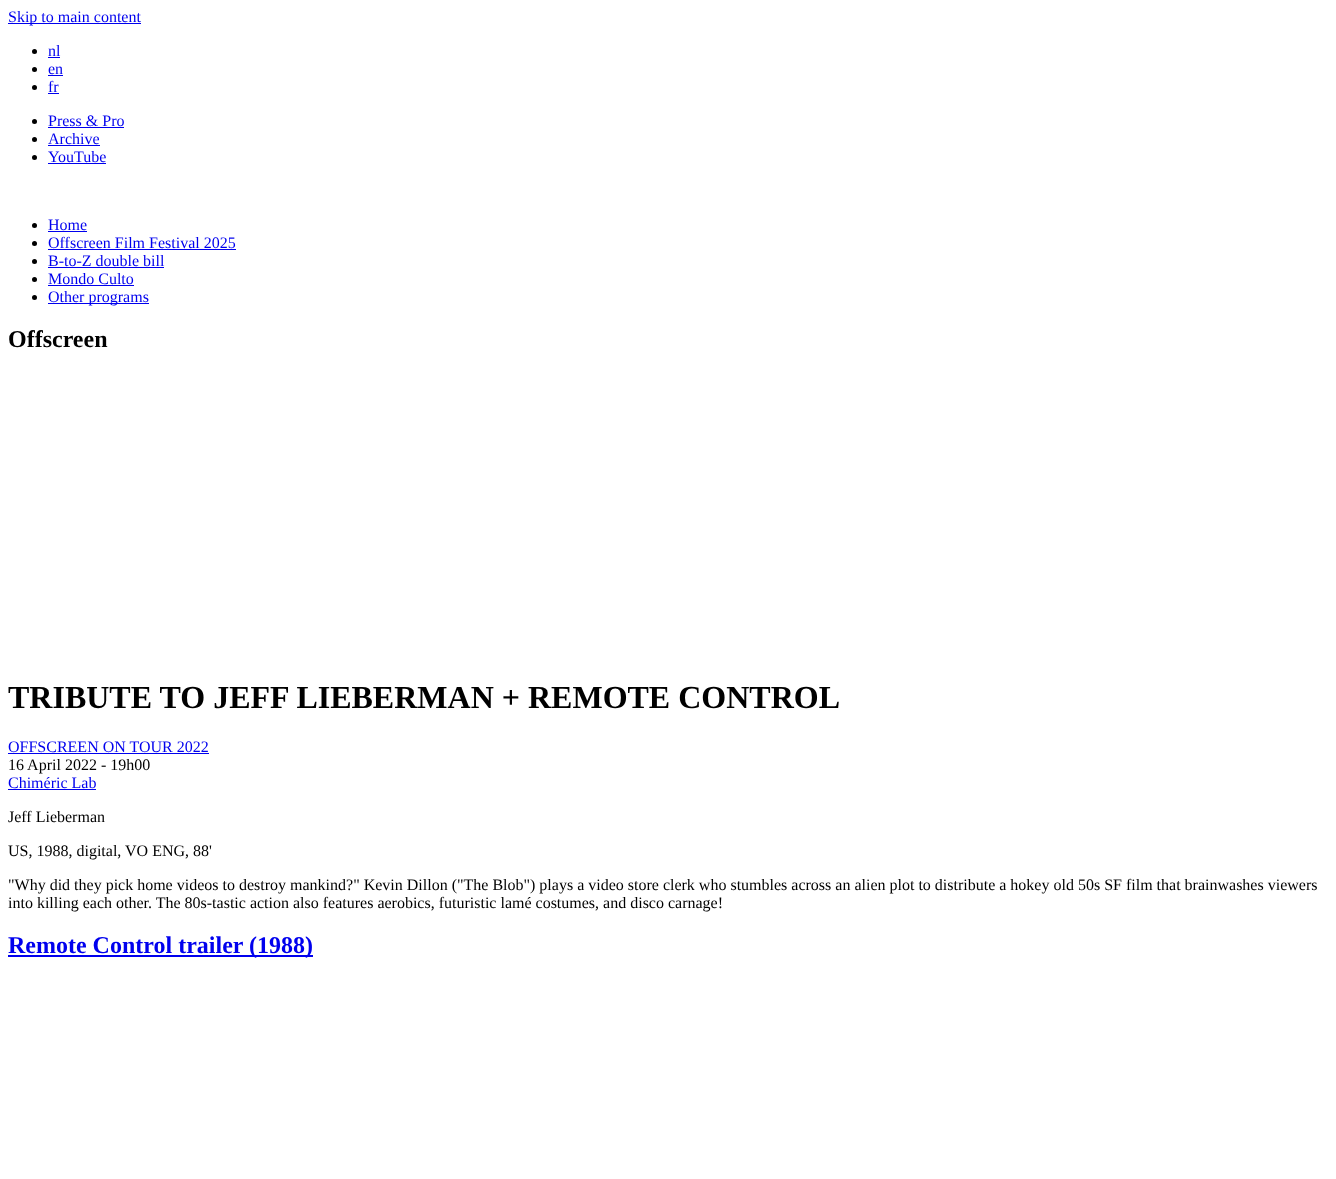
<!DOCTYPE html>
<meta charset="utf-8">
<style>body { margin: 0 } canvas { display: block }</style>
<canvas id="canvas" width="1336" height="1179"></canvas>
<script>
window.onload = function () {
    const canvas = document.getElementById('canvas');
    const context = canvas.getContext('2d');
    context.miterLimit = 4;
    context.fontKerning = 'normal';

    context.fillStyle = 'rgb(255, 255, 255)';
    context.fillRect(0, 0, 1336, 1179);
    context.fillStyle = 'rgb(0, 0, 238)';
    context.fillRect(8, 23, 133, 1);
    context.fillStyle = 'rgb(0, 0, 0)';
    context.beginPath();
    context.arc(34.5, 51.5, 2.5, 0, 2 * Math.PI);
    context.fill();
    context.fillStyle = 'rgb(0, 0, 238)';
    context.fillRect(48, 57, 12, 1);
    context.fillStyle = 'rgb(0, 0, 0)';
    context.beginPath();
    context.arc(34.5, 69.5, 2.5, 0, 2 * Math.PI);
    context.fill();
    context.fillStyle = 'rgb(0, 0, 238)';
    context.fillRect(48, 75, 15, 1);
    context.fillStyle = 'rgb(0, 0, 0)';
    context.beginPath();
    context.arc(34.5, 87.5, 2.5, 0, 2 * Math.PI);
    context.fill();
    context.fillStyle = 'rgb(0, 0, 238)';
    context.fillRect(48, 93, 11, 1);
    context.fillStyle = 'rgb(0, 0, 0)';
    context.beginPath();
    context.arc(34.5, 121.5, 2.5, 0, 2 * Math.PI);
    context.fill();
    context.fillStyle = 'rgb(0, 0, 238)';
    context.fillRect(48, 127, 76, 1);
    context.fillStyle = 'rgb(0, 0, 0)';
    context.beginPath();
    context.arc(34.5, 139.5, 2.5, 0, 2 * Math.PI);
    context.fill();
    context.fillStyle = 'rgb(0, 0, 238)';
    context.fillRect(48, 145, 52, 1);
    context.fillStyle = 'rgb(0, 0, 0)';
    context.beginPath();
    context.arc(34.5, 157.5, 2.5, 0, 2 * Math.PI);
    context.fill();
    context.fillStyle = 'rgb(0, 0, 238)';
    context.fillRect(48, 163, 58, 1);
    context.fillStyle = 'rgb(0, 0, 0)';
    context.beginPath();
    context.arc(34.5, 225.5, 2.5, 0, 2 * Math.PI);
    context.fill();
    context.fillStyle = 'rgb(0, 0, 238)';
    context.fillRect(48, 231, 39, 1);
    context.fillStyle = 'rgb(0, 0, 0)';
    context.beginPath();
    context.arc(34.5, 243.5, 2.5, 0, 2 * Math.PI);
    context.fill();
    context.fillStyle = 'rgb(0, 0, 238)';
    context.fillRect(48, 249, 188, 1);
    context.fillStyle = 'rgb(0, 0, 0)';
    context.beginPath();
    context.arc(34.5, 261.5, 2.5, 0, 2 * Math.PI);
    context.fill();
    context.fillStyle = 'rgb(0, 0, 238)';
    context.fillRect(48, 267, 116, 1);
    context.fillStyle = 'rgb(0, 0, 0)';
    context.beginPath();
    context.arc(34.5, 279.5, 2.5, 0, 2 * Math.PI);
    context.fill();
    context.fillStyle = 'rgb(0, 0, 238)';
    context.fillRect(48, 285, 86, 1);
    context.fillStyle = 'rgb(0, 0, 0)';
    context.beginPath();
    context.arc(34.5, 297.5, 2.5, 0, 2 * Math.PI);
    context.fill();
    context.fillStyle = 'rgb(0, 0, 238)';
    context.fillRect(48, 303, 101, 1);
    context.fillRect(8, 753, 201, 1);
    context.fillRect(8, 789, 88, 1);
    context.fillRect(8, 955, 305, 2);
    context.font = '16px Liberation Serif';
    context.fillText('Skip to main content', 8, 22);
    context.fillText('nl', 48, 56);
    context.fillText('en', 48, 74);
    context.fillText('fr', 48, 92);
    context.fillText('Press & Pro', 48, 126);
    context.fillText('Archive', 48, 144);
    context.fillText('YouTube', 48, 162);
    context.fillText('Home', 48, 230);
    context.fillText('Offscreen Film Festival 2025', 48, 248);
    context.fillText('B-to-Z double bill', 48, 266);
    context.fillText('Mondo Culto', 48, 284);
    context.fillText('Other programs', 48, 302);
    context.font = 'bold 24px Liberation Serif';
    context.fillStyle = 'rgb(0, 0, 0)';
    context.fillText('Offscreen', 8, 347);
    context.font = 'bold 32px Liberation Serif';
    context.fillText('TRIBUTE TO JEFF LIEBERMAN + REMOTE CONTROL', 8, 708);
    context.font = '16px Liberation Serif';
    context.fillStyle = 'rgb(0, 0, 238)';
    context.fillText('OFFSCREEN ON TOUR 2022', 8, 752);
    context.fillStyle = 'rgb(0, 0, 0)';
    context.fillText('16 April 2022 - 19h00', 8, 770);
    context.fillStyle = 'rgb(0, 0, 238)';
    context.fillText('Chiméric Lab', 8, 788);
    context.fillStyle = 'rgb(0, 0, 0)';
    context.fillText('Jeff Lieberman', 8, 822);
    context.fillText('US, 1988, digital, VO ENG, 88\'', 8, 856);
    context.fillText('"Why did they pick home videos to destroy mankind?" Kevin Dillon ("The Blob") plays a video store clerk who stumbles across an alien plot to distribute a hokey old 50s SF film that brainwashes viewers', 8, 890);
    context.fillText('into killing each other. The 80s-tastic action also features aerobics, futuristic lamé costumes, and disco carnage!', 8, 908);
    context.font = 'bold 24px Liberation Serif';
    context.fillStyle = 'rgb(0, 0, 238)';
    context.fillText('Remote Control trailer (1988)', 8, 953);
};
</script>
